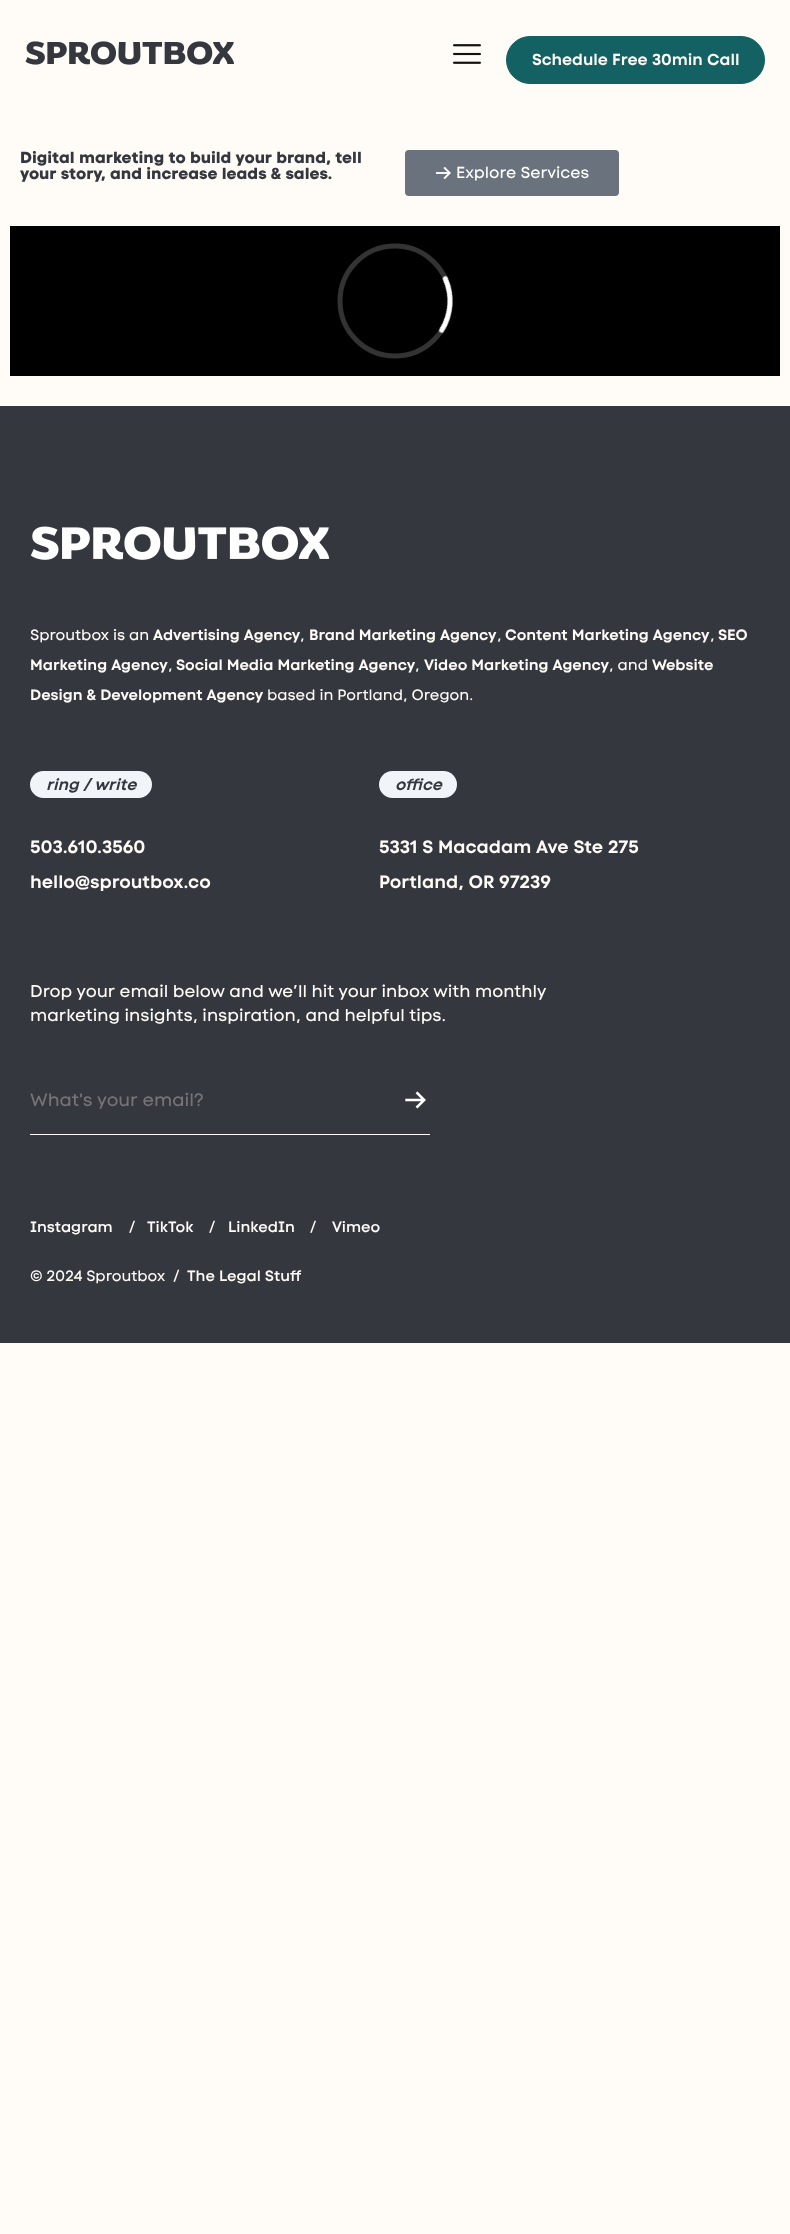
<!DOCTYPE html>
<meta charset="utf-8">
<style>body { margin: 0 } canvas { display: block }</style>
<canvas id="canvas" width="790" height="2234"></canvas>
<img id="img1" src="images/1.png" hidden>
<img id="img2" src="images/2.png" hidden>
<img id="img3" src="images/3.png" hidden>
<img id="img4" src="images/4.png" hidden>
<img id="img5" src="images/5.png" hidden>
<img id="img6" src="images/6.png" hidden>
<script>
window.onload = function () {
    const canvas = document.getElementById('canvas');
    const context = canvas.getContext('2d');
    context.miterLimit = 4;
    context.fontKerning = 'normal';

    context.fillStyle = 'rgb(255, 252, 247)';
    context.fillRect(0, 0, 790, 2234);
    context.drawImage(document.getElementById('img1'), 25, 41, 209, 24);
    context.drawImage(document.getElementById('img2'), 453, 44, 28, 20);
    context.fillStyle = 'rgb(19, 97, 99)';
    context.beginPath();
    context.roundRect(506.5, 36.5, 258, 47, 23.5);
    context.fill();
    context.strokeStyle = 'rgb(19, 97, 99)';
    context.stroke();
    context.fillStyle = 'rgb(105, 114, 125)';
    context.beginPath();
    context.roundRect(405, 150, 214, 46, 4);
    context.fill();
    context.drawImage(document.getElementById('img3'), 435, 166, 16, 14);
    context.fillStyle = 'rgb(0, 0, 0)';
    context.fillRect(10, 226, 770, 150);
    context.drawImage(document.getElementById('img4'), 337, 243, 116, 116);
    context.fillStyle = 'rgb(53, 55, 63)';
    context.fillRect(0, 406, 790, 937);
    context.drawImage(document.getElementById('img5'), 30, 526, 300, 34);
    context.fillStyle = 'rgb(241, 244, 249)';
    context.beginPath();
    context.roundRect(30, 771, 122, 27, 13.5);
    context.fill();
    context.beginPath();
    context.roundRect(379, 771, 78, 27, 13.5);
    context.fill();
    context.fillStyle = 'rgb(255, 252, 247)';
    context.fillRect(30, 1134, 400, 1);
    context.drawImage(document.getElementById('img6'), 405, 1091, 21, 18);
    context.font = '300 16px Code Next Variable';
    context.fillText('Schedule Free 30min Call', 532, 65);
    context.font = '500 16px Code Next Variable';
    context.fillStyle = 'rgb(53, 55, 63)';
    context.fillText('Digital marketing to build your brand, tell', 20, 163);
    context.fillText('your story, and increase leads & sales.', 20, 179);
    context.font = '100 16px Code Next Variable';
    context.fillStyle = 'rgb(255, 255, 255)';
    context.fillText('Explore Services', 456, 178);
    context.font = '100 15px Code Next Variable';
    context.fillStyle = 'rgb(255, 252, 247)';
    context.fillText('Sproutbox is an', 30, 640);
    context.font = '300 15px Code Next Variable';
    context.fillText('Advertising Agency', 153, 640);
    context.font = '100 15px Code Next Variable';
    context.fillText(',', 300, 640);
    context.font = '300 15px Code Next Variable';
    context.fillText('Brand Marketing Agency', 309, 640);
    context.font = '100 15px Code Next Variable';
    context.fillText(',', 497, 640);
    context.font = '300 15px Code Next Variable';
    context.fillText('Content Marketing Agency', 505, 640);
    context.font = '100 15px Code Next Variable';
    context.fillText(',', 710, 640);
    context.font = '300 15px Code Next Variable';
    context.fillText('SEO', 718, 640);
    context.fillText('Marketing Agency', 30, 670);
    context.font = '100 15px Code Next Variable';
    context.fillText(',', 168, 670);
    context.font = '300 15px Code Next Variable';
    context.fillText('Social Media Marketing Agency', 176, 670);
    context.font = '100 15px Code Next Variable';
    context.fillText(',', 415, 670);
    context.font = '300 15px Code Next Variable';
    context.fillText('Video Marketing Agency', 424, 670);
    context.font = '100 15px Code Next Variable';
    context.fillText(', and', 609, 670);
    context.font = '300 15px Code Next Variable';
    context.fillText('Website', 652, 670);
    context.fillText('Design & Development Agency', 30, 700);
    context.font = '100 15px Code Next Variable';
    context.fillText('based in Portland, Oregon.', 267, 700);
    context.font = 'italic 300 16px Code Next Variable';
    context.fillStyle = 'rgb(53, 55, 63)';
    context.fillText('ring / write', 46, 790);
    context.font = '300 18px Code Next Variable';
    context.fillStyle = 'rgb(255, 252, 247)';
    context.fillText('503.610.3560', 30, 853);
    context.fillText('hello@sproutbox.co', 30, 888);
    context.font = 'italic 300 16px Code Next Variable';
    context.fillStyle = 'rgb(53, 55, 63)';
    context.fillText('office', 395, 790);
    context.font = '300 18px Code Next Variable';
    context.fillStyle = 'rgb(255, 252, 247)';
    context.fillText('5331 S Macadam Ave Ste 275', 379, 853);
    context.fillText('Portland, OR 97239', 379, 888);
    context.font = '100 17px Code Next Variable';
    context.fillText('Drop your email below and we’ll hit your inbox with monthly', 30, 997);
    context.fillText('marketing insights, inspiration, and helpful tips.', 30, 1021);
    context.font = '100 18px Code Next Variable';
    context.fillStyle = 'rgb(117, 117, 117)';
    context.fillText('What\'s your email?', 30, 1106);
    context.font = '200 15px Code Next Variable';
    context.fillStyle = 'rgb(255, 252, 247)';
    context.fillText('Instagram', 30, 1232);
    context.font = '100 15px Code Next Variable';
    context.fillText('/', 129, 1232);
    context.font = '200 15px Code Next Variable';
    context.fillText('TikTok', 147, 1232);
    context.font = '100 15px Code Next Variable';
    context.fillText('/', 209, 1232);
    context.font = '200 15px Code Next Variable';
    context.fillText('LinkedIn', 228, 1232);
    context.font = '100 15px Code Next Variable';
    context.fillText('/', 310, 1232);
    context.font = '200 15px Code Next Variable';
    context.fillText('Vimeo', 332, 1232);
    context.font = '100 15px Code Next Variable';
    context.fillText('© 2024 Sproutbox  /', 30, 1281);
    context.font = '200 15px Code Next Variable';
    context.fillText('The Legal Stuff', 187, 1281);
};
</script>
